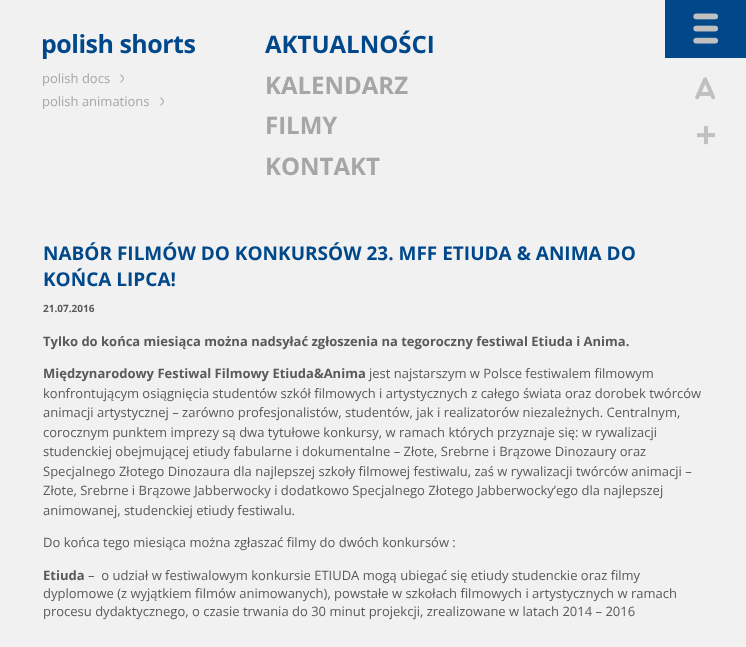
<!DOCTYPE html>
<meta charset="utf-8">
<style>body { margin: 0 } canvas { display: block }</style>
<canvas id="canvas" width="746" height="647"></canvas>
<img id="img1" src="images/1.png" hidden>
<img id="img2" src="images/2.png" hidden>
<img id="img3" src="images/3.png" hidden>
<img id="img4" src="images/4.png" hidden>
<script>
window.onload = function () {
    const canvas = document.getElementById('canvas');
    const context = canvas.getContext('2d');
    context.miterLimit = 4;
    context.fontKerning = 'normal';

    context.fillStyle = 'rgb(241, 241, 241)';
    context.fillRect(0, 0, 746, 647);
    context.fillStyle = 'rgb(0, 72, 138)';
    context.fillRect(665, 0, 81, 58);
    context.drawImage(document.getElementById('img1'), 693, 13, 26, 31);
    context.drawImage(document.getElementById('img2'), 695, 77, 21, 23);
    context.drawImage(document.getElementById('img3'), 697, 126, 18, 19);
    context.drawImage(document.getElementById('img4'), 120, 74, 4, 9);
    context.drawImage(document.getElementById('img4'), 160, 97, 4, 9);
    context.letterSpacing = '-0.5px';
    context.font = 'bold 25px Open Sans';
    context.fillText('polish shorts', 41, 53);
    context.letterSpacing = '0px';
    context.font = 'bold 24px Open Sans';
    context.fillText('AKTUALNOŚCI', 265, 53);
    context.fillStyle = 'rgb(166, 166, 166)';
    context.fillText('KALENDARZ', 265, 94);
    context.fillText('FILMY', 265, 134);
    context.fillText('KONTAKT', 265, 175);
    context.font = '13px Open Sans';
    context.fillText('polish docs', 42, 83);
    context.fillText('polish animations', 42, 106);
    context.font = 'bold 19px Open Sans';
    context.fillStyle = 'rgb(0, 72, 138)';
    context.fillText('NABÓR FILMÓW DO KONKURSÓW 23. MFF ETIUDA & ANIMA DO', 43, 260);
    context.fillText('KOŃCA LIPCA!', 43, 286);
    context.font = 'bold 10px Open Sans';
    context.fillStyle = 'rgb(90, 90, 90)';
    context.fillText('21.07.2016', 43, 312);
    context.font = 'bold 13px Open Sans';
    context.fillText('Tylko do końca miesiąca można nadsyłać zgłoszenia na tegoroczny festiwal Etiuda i Anima.', 43, 346);
    context.fillText('Międzynarodowy Festiwal Filmowy Etiuda&Anima', 43, 378);
    context.font = '13px Open Sans';
    context.fillText('jest najstarszym w Polsce festiwalem filmowym', 369, 378);
    context.fillText('konfrontującym osiągnięcia studentów szkół filmowych i artystycznych z całego świata oraz dorobek twórców', 43, 398);
    context.fillText('animacji artystycznej – zarówno profesjonalistów, studentów, jak i realizatorów niezależnych. Centralnym,', 43, 417);
    context.fillText('corocznym punktem imprezy są dwa tytułowe konkursy, w ramach których przyznaje się: w rywalizacji', 43, 437);
    context.fillText('studenckiej obejmującej etiudy fabularne i dokumentalne – Złote, Srebrne i Brązowe Dinozaury oraz', 43, 456);
    context.fillText('Specjalnego Złotego Dinozaura dla najlepszej szkoły filmowej festiwalu, zaś w rywalizacji twórców animacji –', 43, 476);
    context.fillText('Złote, Srebrne i Brązowe Jabberwocky i dodatkowo Specjalnego Złotego Jabberwocky’ego dla najlepszej', 43, 495);
    context.fillText('animowanej, studenckiej etiudy festiwalu.', 43, 515);
    context.fillText('Do końca tego miesiąca można zgłaszać filmy do dwóch konkursów :', 43, 547);
    context.font = 'bold 13px Open Sans';
    context.fillText('Etiuda', 43, 580);
    context.font = '13px Open Sans';
    context.fillText('–  o udział w festiwalowym konkursie ETIUDA mogą ubiegać się etiudy studenckie oraz filmy', 88, 580);
    context.fillText('dyplomowe (z wyjątkiem filmów animowanych), powstałe w szkołach filmowych i artystycznych w ramach', 43, 598);
    context.fillText('procesu dydaktycznego, o czasie trwania do 30 minut projekcji, zrealizowane w latach 2014 – 2016', 43, 616);
};
</script>
